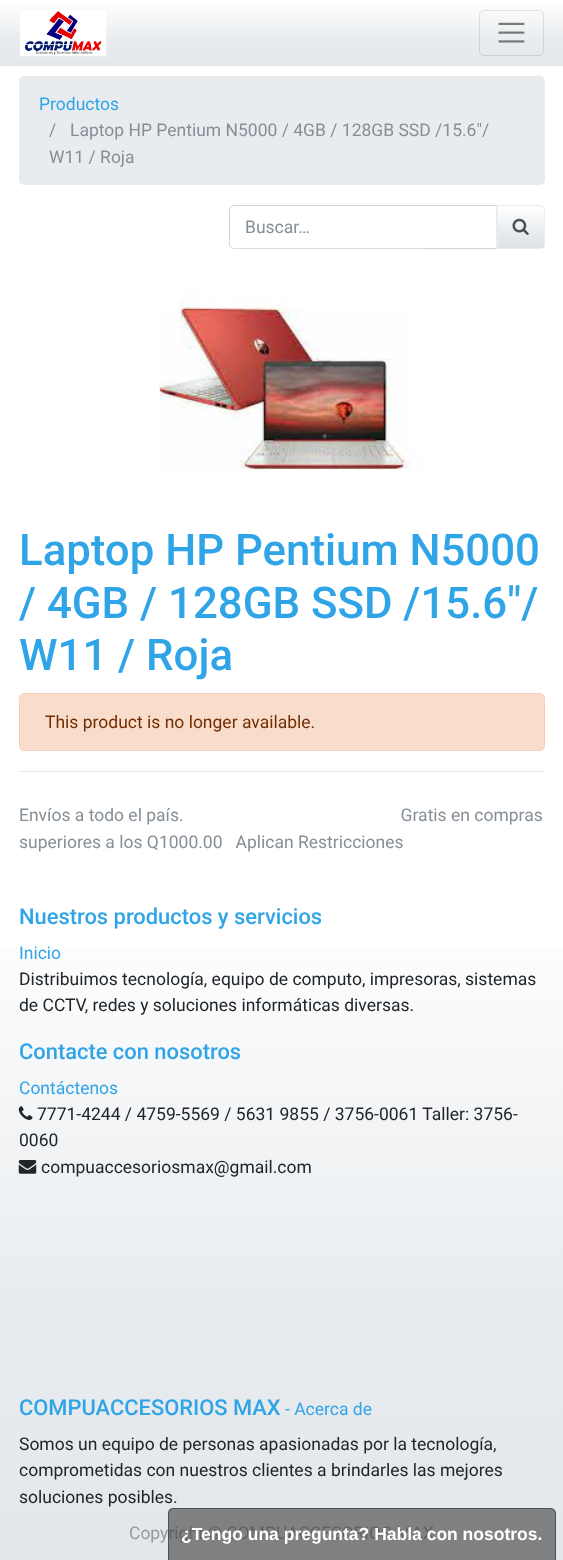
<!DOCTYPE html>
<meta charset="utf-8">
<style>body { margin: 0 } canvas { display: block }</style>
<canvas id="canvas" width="563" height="1560"></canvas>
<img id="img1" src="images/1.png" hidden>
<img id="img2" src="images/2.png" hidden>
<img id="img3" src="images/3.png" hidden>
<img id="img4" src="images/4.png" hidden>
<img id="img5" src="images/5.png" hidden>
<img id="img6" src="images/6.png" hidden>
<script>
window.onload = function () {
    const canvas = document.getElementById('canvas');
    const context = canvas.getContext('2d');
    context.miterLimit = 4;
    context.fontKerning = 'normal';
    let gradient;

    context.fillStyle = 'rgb(255, 255, 255)';
    context.fillRect(0, 0, 563, 1560);
    gradient = context.createLinearGradient(282, 0, 282, 66);
    gradient.addColorStop(0, 'rgb(255, 255, 255)');
    gradient.addColorStop(0.6, 'rgb(233, 236, 239)');
    gradient.addColorStop(1, 'rgb(227, 231, 235)');
    context.fillStyle = gradient;
    context.fillRect(0, 5, 563, 61);
    context.drawImage(document.getElementById('img1'), 20, 10, 87, 47);
    context.beginPath();
    context.roundRect(479.5, 10.5, 64, 45, 4.5);
    context.strokeStyle = 'rgba(0, 0, 0, 0.1)';
    context.stroke();
    context.drawImage(document.getElementById('img2'), 498, 22, 27, 21);
    context.fillStyle = 'rgb(233, 236, 239)';
    context.beginPath();
    context.roundRect(19, 76, 526, 109, 5);
    context.fill();
    context.beginPath();
    context.roundRect(229.5, 205.5, 268, 43, [4.5, 0, 0, 4.5]);
    context.strokeStyle = 'rgb(206, 212, 218)';
    context.stroke();
    context.beginPath();
    context.roundRect(496, 205, 49, 44, [0, 5, 5, 0]);
    context.fill();
    gradient = context.createLinearGradient(521, 206, 521, 248);
    gradient.addColorStop(0, 'rgb(255, 255, 255)');
    gradient.addColorStop(0.6, 'rgb(233, 236, 239)');
    gradient.addColorStop(1, 'rgb(221, 226, 230)');
    context.fillStyle = gradient;
    context.fillRect(498, 206, 46, 42);
    context.beginPath();
    context.roundRect(496.5, 205.5, 48, 43, [0, 4.5, 4.5, 0]);
    context.strokeStyle = 'rgb(233, 236, 239)';
    context.stroke();
    context.drawImage(document.getElementById('img3'), 512, 218, 17, 17);
    context.drawImage(document.getElementById('img4'), 159, 248, 266, 222);
    context.fillStyle = 'rgb(248, 221, 204)';
    context.beginPath();
    context.roundRect(19.5, 693.5, 525, 57, 4.5);
    context.fill();
    context.strokeStyle = 'rgb(245, 208, 184)';
    context.stroke();
    context.fillStyle = 'rgb(230, 230, 230)';
    context.fillRect(19, 771, 526, 1);
    gradient = context.createLinearGradient(282, 903, 282, 1560);
    gradient.addColorStop(0, 'rgb(255, 255, 255)');
    gradient.addColorStop(0.6, 'rgb(233, 236, 239)');
    gradient.addColorStop(1, 'rgb(227, 231, 235)');
    context.fillStyle = gradient;
    context.fillRect(0, 948, 563, 612);
    context.drawImage(document.getElementById('img5'), 18, 1106, 15, 14);
    context.drawImage(document.getElementById('img6'), 18, 1160, 19, 14);
    context.font = '17.5px Roboto';
    context.fillStyle = 'rgb(47, 164, 231)';
    context.fillText('Productos', 39, 110);
    context.fillStyle = 'rgb(134, 142, 150)';
    context.fillText('/', 49, 136);
    context.fillText('Laptop HP Pentium N5000 / 4GB / 128GB SSD /15.6"/', 70, 136);
    context.fillText('W11 / Roja', 49, 163);
    context.fillText('Buscar…', 245, 233);
    context.font = '500 43.75px Roboto';
    context.fillStyle = 'rgb(47, 164, 231)';
    context.fillText('Laptop HP Pentium N5000', 19, 565);
    context.fillText('/ 4GB / 128GB SSD /15.6"/', 19, 618);
    context.fillText('W11 / Roja', 19, 670);
    context.font = '17.5px Roboto';
    context.fillStyle = 'rgb(115, 45, 0)';
    context.fillText('This product is no longer available.', 45, 728);
    context.fillStyle = 'rgb(134, 142, 150)';
    context.fillText('Envíos a todo el país.                                                  Gratis en compras', 19, 821);
    context.fillText('superiores a los Q1000.00   Aplican Restricciones', 19, 848);
    context.font = '500 21.9px Roboto';
    context.fillStyle = 'rgb(47, 164, 231)';
    context.fillText('Nuestros productos y servicios', 19, 924);
    context.font = '17.5px Roboto';
    context.fillText('Inicio', 19, 959);
    context.fillStyle = 'rgb(33, 37, 41)';
    context.fillText('Distribuimos tecnología, equipo de computo, impresoras, sistemas', 19, 985);
    context.fillText('de CCTV, redes y soluciones informáticas diversas.', 19, 1011);
    context.font = '500 21.9px Roboto';
    context.fillStyle = 'rgb(47, 164, 231)';
    context.fillText('Contacte con nosotros', 19, 1059);
    context.font = '17.5px Roboto';
    context.fillText('Contáctenos', 19, 1094);
    context.fillStyle = 'rgb(33, 37, 41)';
    context.fillText('7771-4244 / 4759-5569 / 5631 9855 / 3756-0061 Taller: 3756-', 37, 1120);
    context.fillText('0060', 19, 1146);
    context.fillText('compuaccesoriosmax@gmail.com', 41, 1173);
    context.font = '500 21.9px Roboto';
    context.fillStyle = 'rgb(47, 164, 231)';
    context.fillText('COMPUACCESORIOS MAX', 19, 1415);
    context.font = '17.5px Roboto';
    context.fillText('- Acerca de', 285, 1415);
    context.fillStyle = 'rgb(33, 37, 41)';
    context.fillText('Somos un equipo de personas apasionadas por la tecnología,', 19, 1450);
    context.fillText('comprometidas con nuestros clientes a brindarles las mejores', 19, 1476);
    context.fillText('soluciones posibles.', 19, 1503);
    context.fillStyle = 'rgb(150, 154, 157)';
    context.fillText('Copyright © COMPUACCESORIOS MAX', 129, 1539);
    context.fillStyle = 'rgba(60, 60, 60, 0.6)';
    context.beginPath();
    context.roundRect(168, 1508, 388, 52, [6, 6, 0, 0]);
    context.fill();
    context.fillStyle = 'rgb(80, 80, 80)';
    context.beginPath();
    context.moveTo(174, 1508);
    context.lineTo(550, 1508);
    context.bezierCurveTo(553, 1508, 556, 1510, 556, 1514);
    context.lineTo(556, 1560);
    context.lineTo(168, 1560);
    context.lineTo(168, 1514);
    context.bezierCurveTo(168, 1510, 170, 1508, 174, 1508);
    context.closePath();
    context.moveTo(174, 1509);
    context.lineTo(550, 1509);
    context.bezierCurveTo(553, 1509, 555, 1511, 555, 1514);
    context.lineTo(555, 1560);
    context.lineTo(169, 1560);
    context.lineTo(169, 1514);
    context.bezierCurveTo(169, 1511, 171, 1509, 174, 1509);
    context.closePath();
    context.fill('evenodd');
    context.font = 'bold 17.5px Liberation Sans';
    context.fillStyle = 'rgb(255, 255, 255)';
    context.fillText('¿Tengo una pregunta? Habla con nosotros.', 181, 1540);
};
</script>
